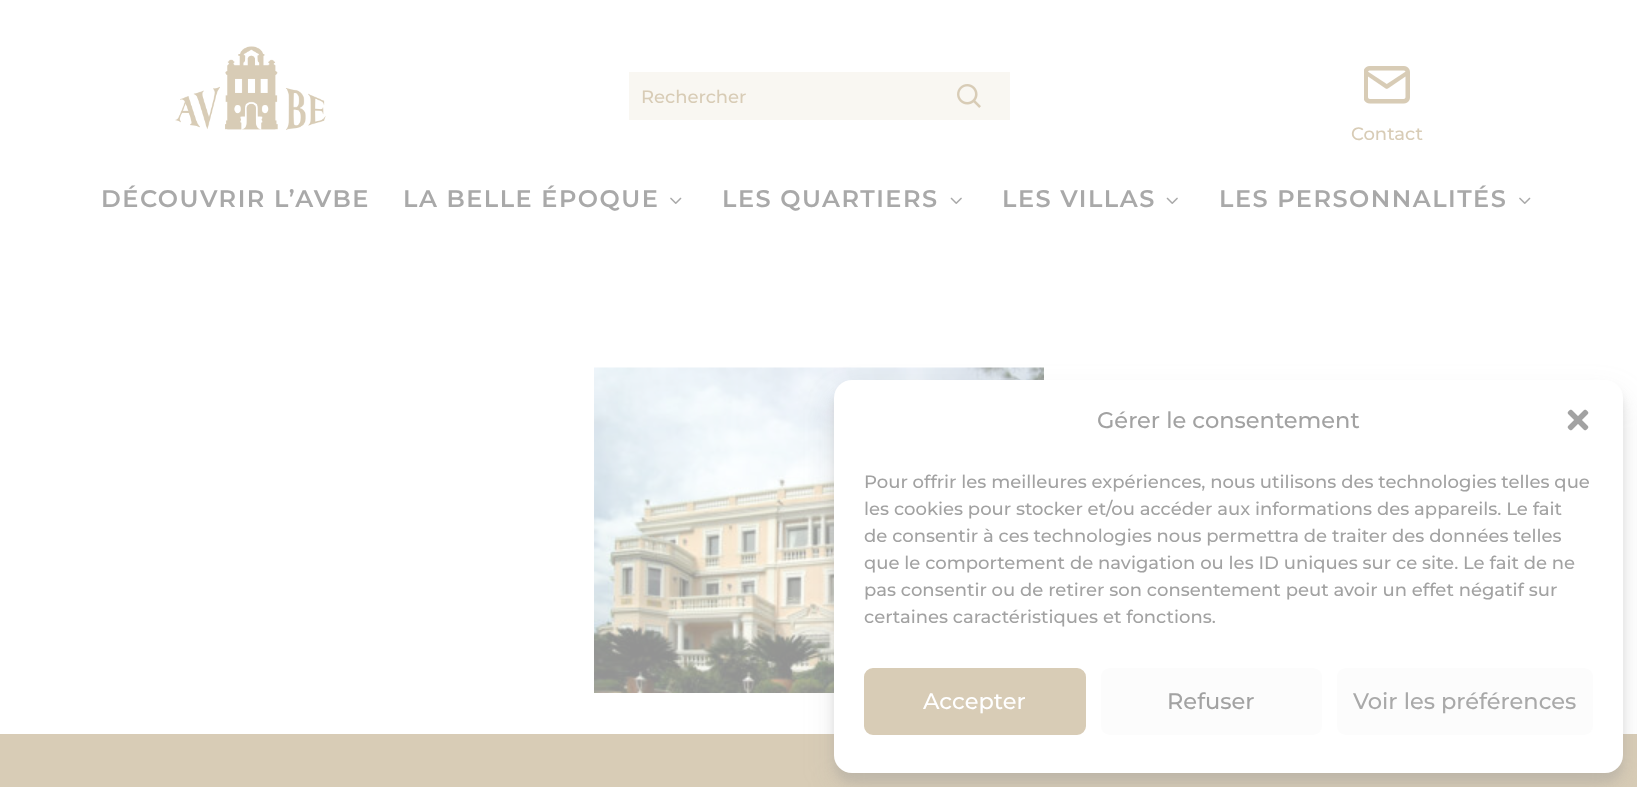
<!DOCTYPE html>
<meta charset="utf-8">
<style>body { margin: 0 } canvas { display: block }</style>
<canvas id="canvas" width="1637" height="787"></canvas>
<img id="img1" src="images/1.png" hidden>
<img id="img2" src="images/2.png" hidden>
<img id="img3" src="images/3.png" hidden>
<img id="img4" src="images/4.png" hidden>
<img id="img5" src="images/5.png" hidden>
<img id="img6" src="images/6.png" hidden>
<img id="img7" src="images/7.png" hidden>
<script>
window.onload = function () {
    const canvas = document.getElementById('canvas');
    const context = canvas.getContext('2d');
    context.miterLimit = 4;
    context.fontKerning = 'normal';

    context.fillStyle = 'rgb(255, 255, 255)';
    context.fillRect(0, 0, 1637, 787);
    context.drawImage(document.getElementById('img1'), 175, 46, 151, 84);
    context.fillStyle = 'rgb(249, 247, 242)';
    context.fillRect(629, 72, 381, 48);
    context.drawImage(document.getElementById('img2'), 957, 84, 24, 24);
    context.drawImage(document.getElementById('img3'), 1364, 66, 46, 38);
    context.drawImage(document.getElementById('img4'), 670, 197, 12, 7);
    context.drawImage(document.getElementById('img5'), 950, 197, 12, 7);
    context.drawImage(document.getElementById('img5'), 1166, 197, 12, 7);
    context.drawImage(document.getElementById('img4'), 1519, 197, 12, 7);
    context.drawImage(document.getElementById('img6'), 594, 367, 450, 326);
    context.fillStyle = 'rgb(216, 204, 182)';
    context.fillRect(0, 734, 1637, 53);
    context.fillStyle = 'rgba(148, 148, 148, 0.23)';
    context.filter = 'blur(4.5px)';
    context.beginPath();
    context.roundRect(834, 389, 789, 393, 18);
    context.fill();
    context.filter = 'none';
    context.fillStyle = 'rgba(148, 148, 148, 0.19)';
    context.filter = 'blur(15px)';
    context.beginPath();
    context.roundRect(834, 395, 789, 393, 18);
    context.fill();
    context.filter = 'none';
    context.fillStyle = 'rgb(255, 255, 255)';
    context.beginPath();
    context.roundRect(834, 380, 789, 393, 18);
    context.fill();
    context.drawImage(document.getElementById('img7'), 1567, 409, 22, 22);
    context.fillStyle = 'rgb(216, 204, 182)';
    context.beginPath();
    context.roundRect(865, 669, 220, 65, 8);
    context.fill();
    context.strokeStyle = 'rgb(216, 204, 182)';
    context.lineWidth = 2;
    context.stroke();
    context.fillStyle = 'rgb(252, 252, 252)';
    context.beginPath();
    context.roundRect(1101, 668, 221, 67, 9);
    context.fill();
    context.beginPath();
    context.roundRect(1337, 668, 256, 67, 9);
    context.fill();
    context.font = '500 18px Montserrat';
    context.fillStyle = 'rgb(216, 204, 182)';
    context.fillText('Rechercher', 641, 103);
    context.fillText('Contact', 1351, 140);
    context.letterSpacing = '1.5px';
    context.font = '600 24px Montserrat';
    context.fillStyle = 'rgb(169, 169, 169)';
    context.fillText('DÉCOUVRIR L’AVBE', 101, 207);
    context.fillText('LA BELLE ÉPOQUE', 403, 207);
    context.fillText('LES QUARTIERS', 722, 207);
    context.fillText('LES VILLAS', 1002, 207);
    context.fillText('LES PERSONNALITÉS', 1219, 207);
    context.letterSpacing = '0px';
    context.font = '500 22.5px Montserrat';
    context.fillStyle = 'rgb(162, 162, 162)';
    context.fillText('Gérer le consentement', 1097, 428);
    context.font = '500 18px Montserrat';
    context.fillText('Pour offrir les meilleures expériences, nous utilisons des technologies telles que', 864, 488);
    context.fillText('les cookies pour stocker et/ou accéder aux informations des appareils. Le fait', 864, 515);
    context.fillText('de consentir à ces technologies nous permettra de traiter des données telles', 864, 542);
    context.fillText('que le comportement de navigation ou les ID uniques sur ce site. Le fait de ne', 864, 569);
    context.fillText('pas consentir ou de retirer son consentement peut avoir un effet négatif sur', 864, 596);
    context.fillText('certaines caractéristiques et fonctions.', 864, 623);
    context.font = '500 22.5px Montserrat';
    context.fillStyle = 'rgb(255, 255, 255)';
    context.fillText('Accepter', 923, 709);
    context.fillStyle = 'rgb(162, 162, 162)';
    context.fillText('Refuser', 1167, 709);
    context.fillStyle = 'rgb(169, 169, 169)';
    context.fillText('Voir les préférences', 1353, 709);
};
</script>
